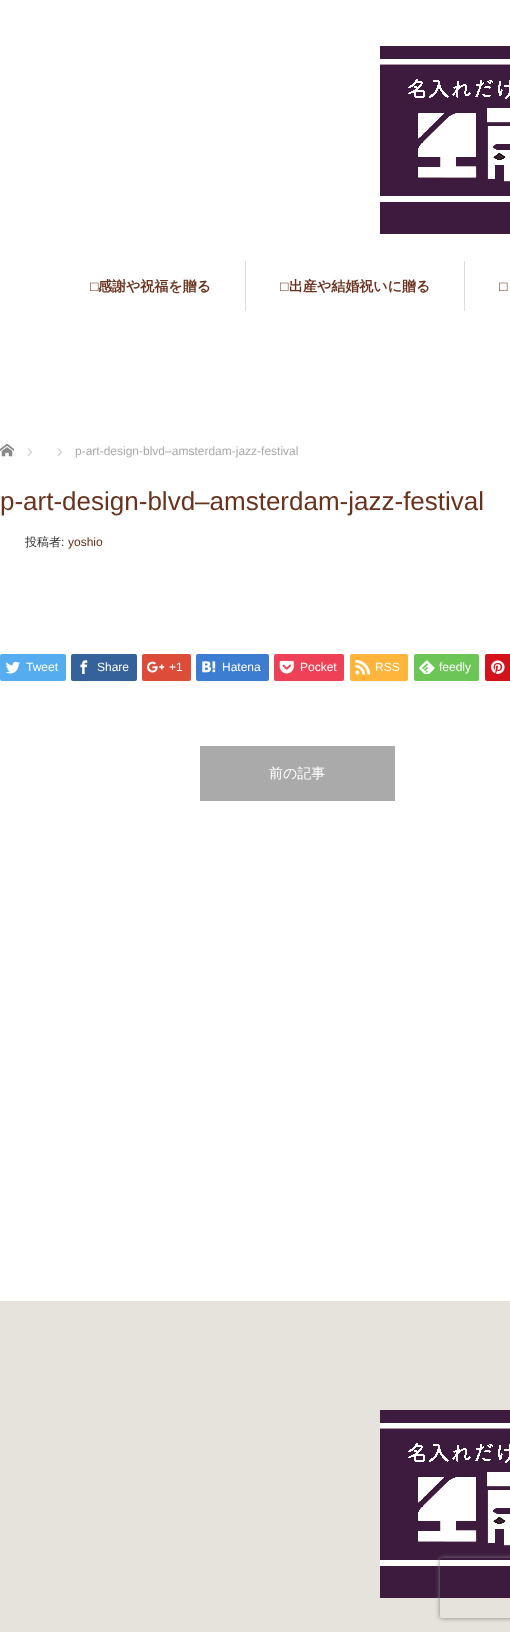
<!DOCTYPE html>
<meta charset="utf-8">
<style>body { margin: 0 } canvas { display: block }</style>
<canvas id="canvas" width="510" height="1632"></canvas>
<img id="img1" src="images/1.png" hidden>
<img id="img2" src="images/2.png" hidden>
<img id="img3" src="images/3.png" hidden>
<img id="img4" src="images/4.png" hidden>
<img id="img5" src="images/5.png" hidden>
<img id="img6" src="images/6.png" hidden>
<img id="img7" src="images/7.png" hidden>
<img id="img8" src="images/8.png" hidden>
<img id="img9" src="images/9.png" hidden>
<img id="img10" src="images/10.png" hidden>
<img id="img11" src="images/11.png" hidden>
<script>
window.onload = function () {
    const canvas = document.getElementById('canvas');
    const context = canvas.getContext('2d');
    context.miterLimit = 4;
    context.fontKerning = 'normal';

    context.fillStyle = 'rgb(255, 255, 255)';
    context.fillRect(0, 0, 510, 1632);
    context.drawImage(document.getElementById('img1'), 380, 46, 130, 188);
    context.fillStyle = 'rgb(221, 221, 221)';
    context.fillRect(245, 261, 1, 50);
    context.fillRect(464, 261, 1, 50);
    context.drawImage(document.getElementById('img2'), 0, 443, 14, 14);
    context.drawImage(document.getElementById('img3'), 27, 448, 5, 8);
    context.drawImage(document.getElementById('img3'), 57, 448, 5, 8);
    context.fillStyle = 'rgb(247, 247, 247)';
    context.beginPath();
    context.moveTo(0, 679);
    context.bezierCurveTo(0, 685, 9, 682, 12, 682);
    context.lineTo(54, 682);
    context.bezierCurveTo(57, 682, 66, 685, 66, 679);
    context.bezierCurveTo(66, 683, 58, 681, 54, 681);
    context.lineTo(1, 681);
    context.closePath();
    context.fill();
    context.fillStyle = 'rgb(85, 172, 238)';
    context.beginPath();
    context.roundRect(0, 654, 66, 27, 2);
    context.fill();
    context.drawImage(document.getElementById('img4'), 5, 661, 15, 13);
    context.fillStyle = 'rgb(247, 247, 247)';
    context.beginPath();
    context.moveTo(71, 679);
    context.bezierCurveTo(71, 685, 80, 682, 83, 682);
    context.lineTo(125, 682);
    context.bezierCurveTo(128, 682, 137, 685, 137, 679);
    context.lineTo(136, 681);
    context.lineTo(83, 681);
    context.bezierCurveTo(79, 681, 71, 683, 71, 679);
    context.closePath();
    context.fill();
    context.fillStyle = 'rgb(53, 98, 154)';
    context.beginPath();
    context.roundRect(71, 654, 66, 27, 2);
    context.fill();
    context.drawImage(document.getElementById('img5'), 80, 660, 8, 14);
    context.fillStyle = 'rgb(247, 247, 247)';
    context.beginPath();
    context.moveTo(142, 679);
    context.bezierCurveTo(142, 684, 148, 682, 152, 682);
    context.lineTo(182, 682);
    context.bezierCurveTo(185, 682, 191, 684, 191, 679);
    context.bezierCurveTo(191, 680, 190, 681, 189, 681);
    context.lineTo(144, 681);
    context.bezierCurveTo(143, 681, 142, 680, 142, 679);
    context.closePath();
    context.fill();
    context.fillStyle = 'rgb(221, 75, 57)';
    context.beginPath();
    context.roundRect(142, 654, 49, 27, 2);
    context.fill();
    context.drawImage(document.getElementById('img6'), 147, 661, 18, 12);
    context.fillStyle = 'rgb(247, 247, 247)';
    context.beginPath();
    context.moveTo(196, 679);
    context.bezierCurveTo(196, 685, 206, 682, 210, 682);
    context.lineTo(256, 682);
    context.bezierCurveTo(259, 682, 269, 685, 269, 679);
    context.bezierCurveTo(269, 680, 268, 681, 267, 681);
    context.lineTo(198, 681);
    context.bezierCurveTo(197, 681, 196, 680, 196, 679);
    context.closePath();
    context.fill();
    context.fillStyle = 'rgb(60, 125, 209)';
    context.beginPath();
    context.roundRect(196, 654, 73, 27, 2);
    context.fill();
    context.drawImage(document.getElementById('img7'), 202, 661, 14, 12);
    context.fillStyle = 'rgb(247, 247, 247)';
    context.beginPath();
    context.moveTo(274, 679);
    context.bezierCurveTo(274, 685, 283, 682, 287, 682);
    context.lineTo(331, 682);
    context.bezierCurveTo(335, 682, 344, 685, 344, 679);
    context.bezierCurveTo(344, 680, 343, 681, 342, 681);
    context.lineTo(275, 681);
    context.closePath();
    context.fill();
    context.fillStyle = 'rgb(238, 64, 86)';
    context.beginPath();
    context.roundRect(274, 654, 70, 27, 2);
    context.fill();
    context.drawImage(document.getElementById('img8'), 279, 660, 15, 14);
    context.fillStyle = 'rgb(247, 247, 247)';
    context.beginPath();
    context.moveTo(350, 679);
    context.bezierCurveTo(350, 684, 357, 682, 361, 682);
    context.lineTo(397, 682);
    context.bezierCurveTo(401, 682, 408, 684, 408, 679);
    context.lineTo(407, 681);
    context.lineTo(351, 681);
    context.closePath();
    context.fill();
    context.fillStyle = 'rgb(255, 181, 60)';
    context.beginPath();
    context.roundRect(350, 654, 58, 27, 2);
    context.fill();
    context.drawImage(document.getElementById('img9'), 355, 659, 16, 16);
    context.fillStyle = 'rgb(247, 247, 247)';
    context.beginPath();
    context.moveTo(414, 679);
    context.bezierCurveTo(414, 685, 422, 682, 426, 682);
    context.lineTo(467, 682);
    context.bezierCurveTo(471, 682, 479, 685, 479, 679);
    context.lineTo(478, 681);
    context.lineTo(426, 681);
    context.bezierCurveTo(422, 681, 414, 683, 414, 679);
    context.closePath();
    context.fill();
    context.fillStyle = 'rgb(108, 198, 85)';
    context.beginPath();
    context.roundRect(414, 654, 65, 27, 2);
    context.fill();
    context.drawImage(document.getElementById('img10'), 419, 660, 16, 14);
    context.fillStyle = 'rgb(247, 247, 247)';
    context.beginPath();
    context.moveTo(485, 679);
    context.bezierCurveTo(485, 685, 493, 682, 496, 682);
    context.lineTo(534, 682);
    context.bezierCurveTo(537, 682, 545, 685, 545, 679);
    context.lineTo(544, 681);
    context.lineTo(486, 681);
    context.closePath();
    context.fill();
    context.fillStyle = 'rgb(212, 18, 28)';
    context.beginPath();
    context.roundRect(485, 654, 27, 27, 2);
    context.fill();
    context.drawImage(document.getElementById('img11'), 491, 660, 14, 14);
    context.fillStyle = 'rgb(170, 170, 170)';
    context.fillRect(200, 746, 195, 55);
    context.fillStyle = 'rgb(230, 227, 220)';
    context.fillRect(0, 1301, 510, 331);
    context.drawImage(document.getElementById('img1'), 380, 1410, 130, 188);
    context.save();
    context.beginPath();
    context.moveTo(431, 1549);
    context.lineTo(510, 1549);
    context.lineTo(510, 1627);
    context.lineTo(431, 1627);
    context.closePath();
    context.moveTo(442, 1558);
    context.lineTo(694, 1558);
    context.bezierCurveTo(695, 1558, 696, 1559, 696, 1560);
    context.lineTo(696, 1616);
    context.bezierCurveTo(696, 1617, 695, 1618, 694, 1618);
    context.lineTo(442, 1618);
    context.bezierCurveTo(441, 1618, 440, 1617, 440, 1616);
    context.lineTo(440, 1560);
    context.bezierCurveTo(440, 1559, 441, 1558, 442, 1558);
    context.closePath();
    context.clip('evenodd');
    context.fillStyle = 'rgb(128, 128, 128)';
    context.filter = 'blur(2.5px)';
    context.beginPath();
    context.roundRect(440, 1558, 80, 60, 2);
    context.fill();
    context.filter = 'none';
    context.restore();
    context.font = 'bold 14px Liberation Sans';
    context.fillStyle = 'rgb(106, 50, 29)';
    context.fillText('□', 90, 291);
    context.font = 'bold 14px WenQuanYi Zen Hei';
    context.fillText('感謝や祝福を贈る', 98, 291);
    context.font = 'bold 14px Liberation Sans';
    context.fillText('□', 280, 291);
    context.font = 'bold 14px WenQuanYi Zen Hei';
    context.fillText('出産や結婚祝いに贈る', 289, 291);
    context.font = 'bold 14px Liberation Sans';
    context.fillText('□', 499, 291);
    context.font = '12px Liberation Sans';
    context.fillStyle = 'rgb(170, 170, 170)';
    context.fillText('p-art-design-blvd–amsterdam-jazz-festival', 75, 455);
    context.font = '26px Liberation Sans';
    context.fillStyle = 'rgb(106, 50, 29)';
    context.fillText('p-art-design-blvd–amsterdam-jazz-festival', 0, 510);
    context.font = '500 12px WenQuanYi Zen Hei';
    context.fillStyle = 'rgb(51, 51, 51)';
    context.fillText('投稿者', 25, 546);
    context.font = '12px Liberation Sans';
    context.fillText(':', 61, 546);
    context.fillStyle = 'rgb(106, 50, 29)';
    context.fillText('yoshio', 68, 546);
    context.fillStyle = 'rgb(255, 255, 255)';
    context.fillText('Tweet', 26, 671);
    context.fillText('Share', 97, 671);
    context.fillText('+1', 169, 671);
    context.fillText('Hatena', 222, 671);
    context.fillText('Pocket', 300, 671);
    context.fillText('RSS', 375, 671);
    context.fillText('feedly', 439, 671);
    context.font = '500 14px WenQuanYi Zen Hei';
    context.fillText('前の記事', 269, 778);
};
</script>
